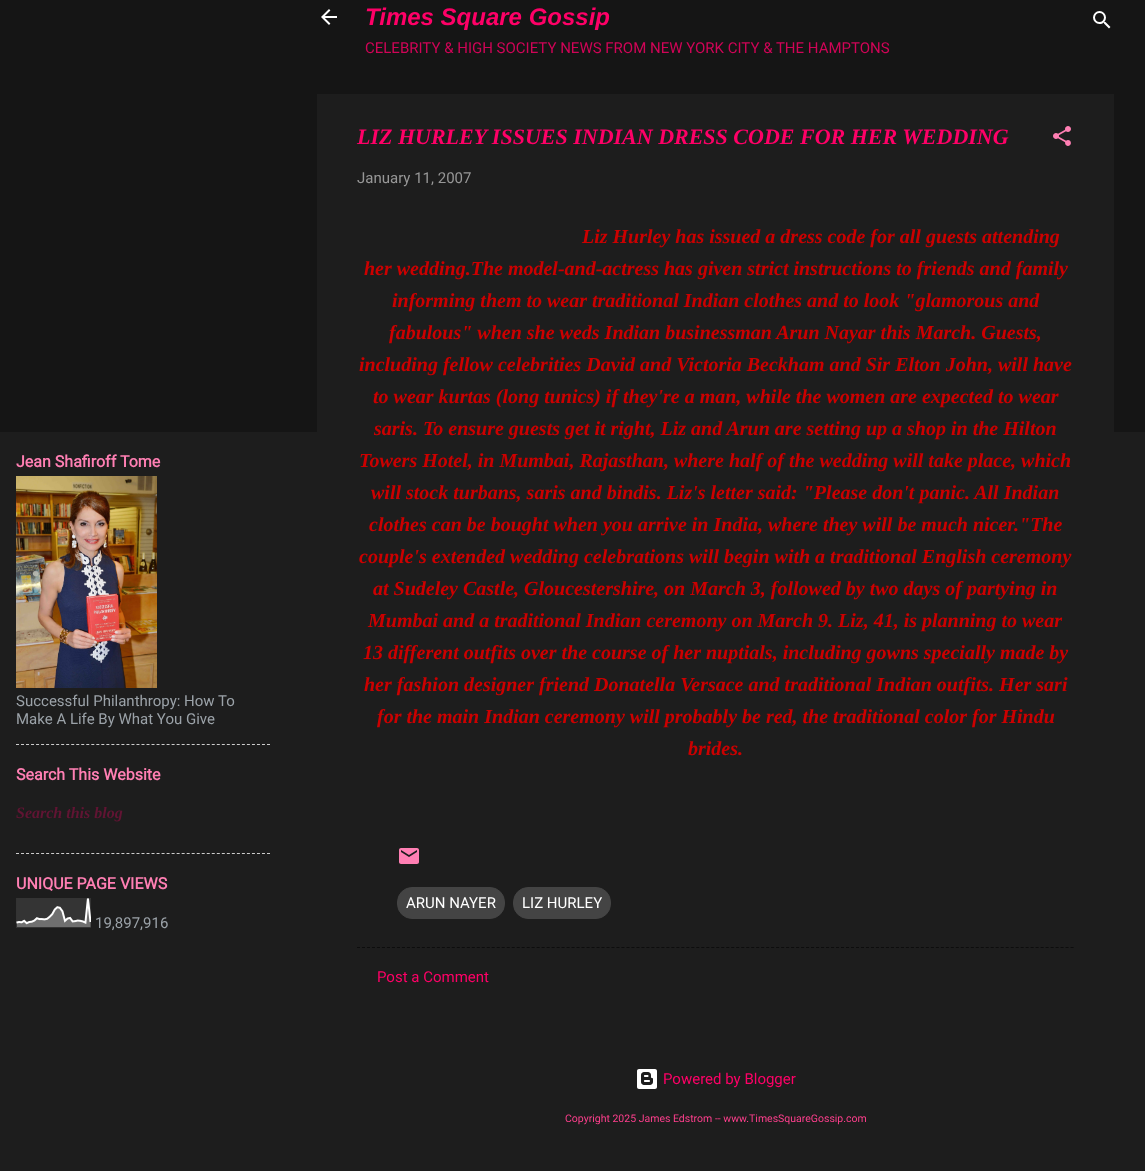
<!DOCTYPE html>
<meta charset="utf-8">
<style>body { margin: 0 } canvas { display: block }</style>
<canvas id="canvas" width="1145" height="1171"></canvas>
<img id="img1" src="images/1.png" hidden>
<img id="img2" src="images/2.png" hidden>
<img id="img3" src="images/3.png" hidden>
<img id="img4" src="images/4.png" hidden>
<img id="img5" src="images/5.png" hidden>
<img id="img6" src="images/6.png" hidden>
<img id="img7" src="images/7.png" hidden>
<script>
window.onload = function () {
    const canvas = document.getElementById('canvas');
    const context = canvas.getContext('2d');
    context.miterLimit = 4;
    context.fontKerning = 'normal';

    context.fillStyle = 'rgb(29, 29, 29)';
    context.fillRect(0, 0, 1145, 1171);
    context.drawImage(document.getElementById('img1'), 16, 476, 141, 212);
    context.beginPath();
    context.moveTo(16, 744.5);
    context.lineTo(270, 744.5);
    context.strokeStyle = 'rgb(204, 204, 204)';
    context.setLineDash([3, 2.02]);
    context.stroke();
    context.beginPath();
    context.moveTo(16, 853.5);
    context.lineTo(270, 853.5);
    context.stroke();
    context.drawImage(document.getElementById('img2'), 16, 898, 75, 30);
    context.fillStyle = 'rgb(21, 21, 21)';
    context.fillRect(0, 0, 1145, 432);
    context.drawImage(document.getElementById('img3'), 321, 9, 16, 16);
    context.drawImage(document.getElementById('img4'), 1093, 11, 18, 18);
    context.fillStyle = 'rgb(29, 29, 29)';
    context.fillRect(317, 94, 797, 338);
    context.drawImage(document.getElementById('img5'), 1053, 126, 18, 20);
    context.drawImage(document.getElementById('img6'), 399, 848, 20, 16);
    context.fillStyle = 'rgb(68, 68, 68)';
    context.beginPath();
    context.roundRect(397.5, 887.5, 107, 31, 14.5);
    context.fill();
    context.strokeStyle = 'rgb(68, 68, 68)';
    context.setLineDash([]);
    context.stroke();
    context.beginPath();
    context.roundRect(513.5, 887.5, 97, 31, 14.5);
    context.fill();
    context.stroke();
    context.beginPath();
    context.moveTo(357, 947.5);
    context.lineTo(1074, 947.5);
    context.strokeStyle = 'rgb(13, 13, 13)';
    context.setLineDash([3, 1.99]);
    context.stroke();
    context.drawImage(document.getElementById('img7'), 637, 1069, 20, 20);
    context.font = 'bold 16px Roboto';
    context.fillStyle = 'rgb(255, 127, 179)';
    context.fillText('Jean Shafiroff Tome', 16, 467);
    context.font = '15px Roboto';
    context.fillStyle = 'rgb(155, 162, 168)';
    context.fillText('Successful Philanthropy: How To', 16, 706);
    context.fillText('Make A Life By What You Give', 16, 724);
    context.font = 'bold 16px Roboto';
    context.fillStyle = 'rgb(255, 127, 179)';
    context.fillText('Search This Website', 16, 780);
    context.font = 'italic bold 16px Liberation Serif';
    context.fillStyle = 'rgb(97, 20, 51)';
    context.fillText('Search this blog', 16, 818);
    context.font = 'bold 16px Roboto';
    context.fillStyle = 'rgb(255, 127, 179)';
    context.fillText('UNIQUE PAGE VIEWS', 16, 889);
    context.font = '15px Roboto';
    context.fillStyle = 'rgb(155, 162, 168)';
    context.fillText('19,897,916', 95, 928);
    context.font = 'italic bold 24px Liberation Sans';
    context.fillStyle = 'rgb(255, 0, 103)';
    context.fillText('Times Square Gossip', 365, 25);
    context.font = '15px Roboto';
    context.fillStyle = 'rgb(208, 4, 87)';
    context.fillText('CELEBRITY & HIGH SOCIETY NEWS FROM NEW YORK CITY & THE HAMPTONS', 365, 53);
    context.font = 'italic bold 22px Liberation Serif';
    context.fillStyle = 'rgb(255, 0, 103)';
    context.fillText('LIZ HURLEY ISSUES INDIAN DRESS CODE FOR HER WEDDING', 357, 144);
    context.font = '15px Roboto';
    context.fillStyle = 'rgb(151, 151, 151)';
    context.fillText('January 11, 2007', 357, 183);
    context.font = 'italic bold 20px Liberation Serif';
    context.fillStyle = 'rgb(204, 0, 0)';
    context.fillText('Liz Hurley has issued a dress code for all guests attending', 582, 243);
    context.fillText('her wedding.The model-and-actress has given strict instructions to friends and family', 364, 275);
    context.fillText('informing them to wear traditional Indian clothes and to look "glamorous and', 392, 307);
    context.fillText('fabulous" when she weds Indian businessman Arun Nayar this March. Guests,', 389, 339);
    context.fillText('including fellow celebrities David and Victoria Beckham and Sir Elton John, will have', 359, 371);
    context.fillText('to wear kurtas (long tunics) if they\'re a man, while the women are expected to wear', 373, 403);
    context.fillText('saris. To ensure guests get it right, Liz and Arun are setting up a shop in the Hilton', 374, 435);
    context.fillText('Towers Hotel, in Mumbai, Rajasthan, where half of the wedding will take place, which', 359, 467);
    context.fillText('will stock turbans, saris and bindis. Liz\'s letter said: "Please don\'t panic. All Indian', 371, 499);
    context.fillText('clothes can be bought when you arrive in India, where they will be much nicer."The', 369, 531);
    context.fillText('couple\'s extended wedding celebrations will begin with a traditional English ceremony', 359, 563);
    context.fillText('at Sudeley Castle, Gloucestershire, on March 3, followed by two days of partying in', 373, 595);
    context.fillText('Mumbai and a traditional Indian ceremony on March 9. Liz, 41, is planning to wear', 368, 627);
    context.fillText('13 different outfits over the course of her nuptials, including gowns specially made by', 363, 659);
    context.fillText('her fashion designer friend Donatella Versace and traditional Indian outfits. Her sari', 364, 691);
    context.fillText('for the main Indian ceremony will probably be red, the traditional color for Hindu', 377, 723);
    context.fillText('brides.', 688, 755);
    context.font = '15px Roboto';
    context.fillStyle = 'rgb(255, 255, 255)';
    context.fillText('ARUN NAYER', 406, 908);
    context.fillText('LIZ HURLEY', 522, 908);
    context.fillStyle = 'rgb(255, 0, 103)';
    context.fillText('Post a Comment', 377, 982);
    context.fillText('Powered by Blogger', 663, 1084);
    context.font = '10.5px Roboto';
    context.fillStyle = 'rgb(255, 63, 141)';
    context.fillText('Copyright 2025 James Edstrom -- www.TimesSquareGossip.com', 565, 1122);
};
</script>
